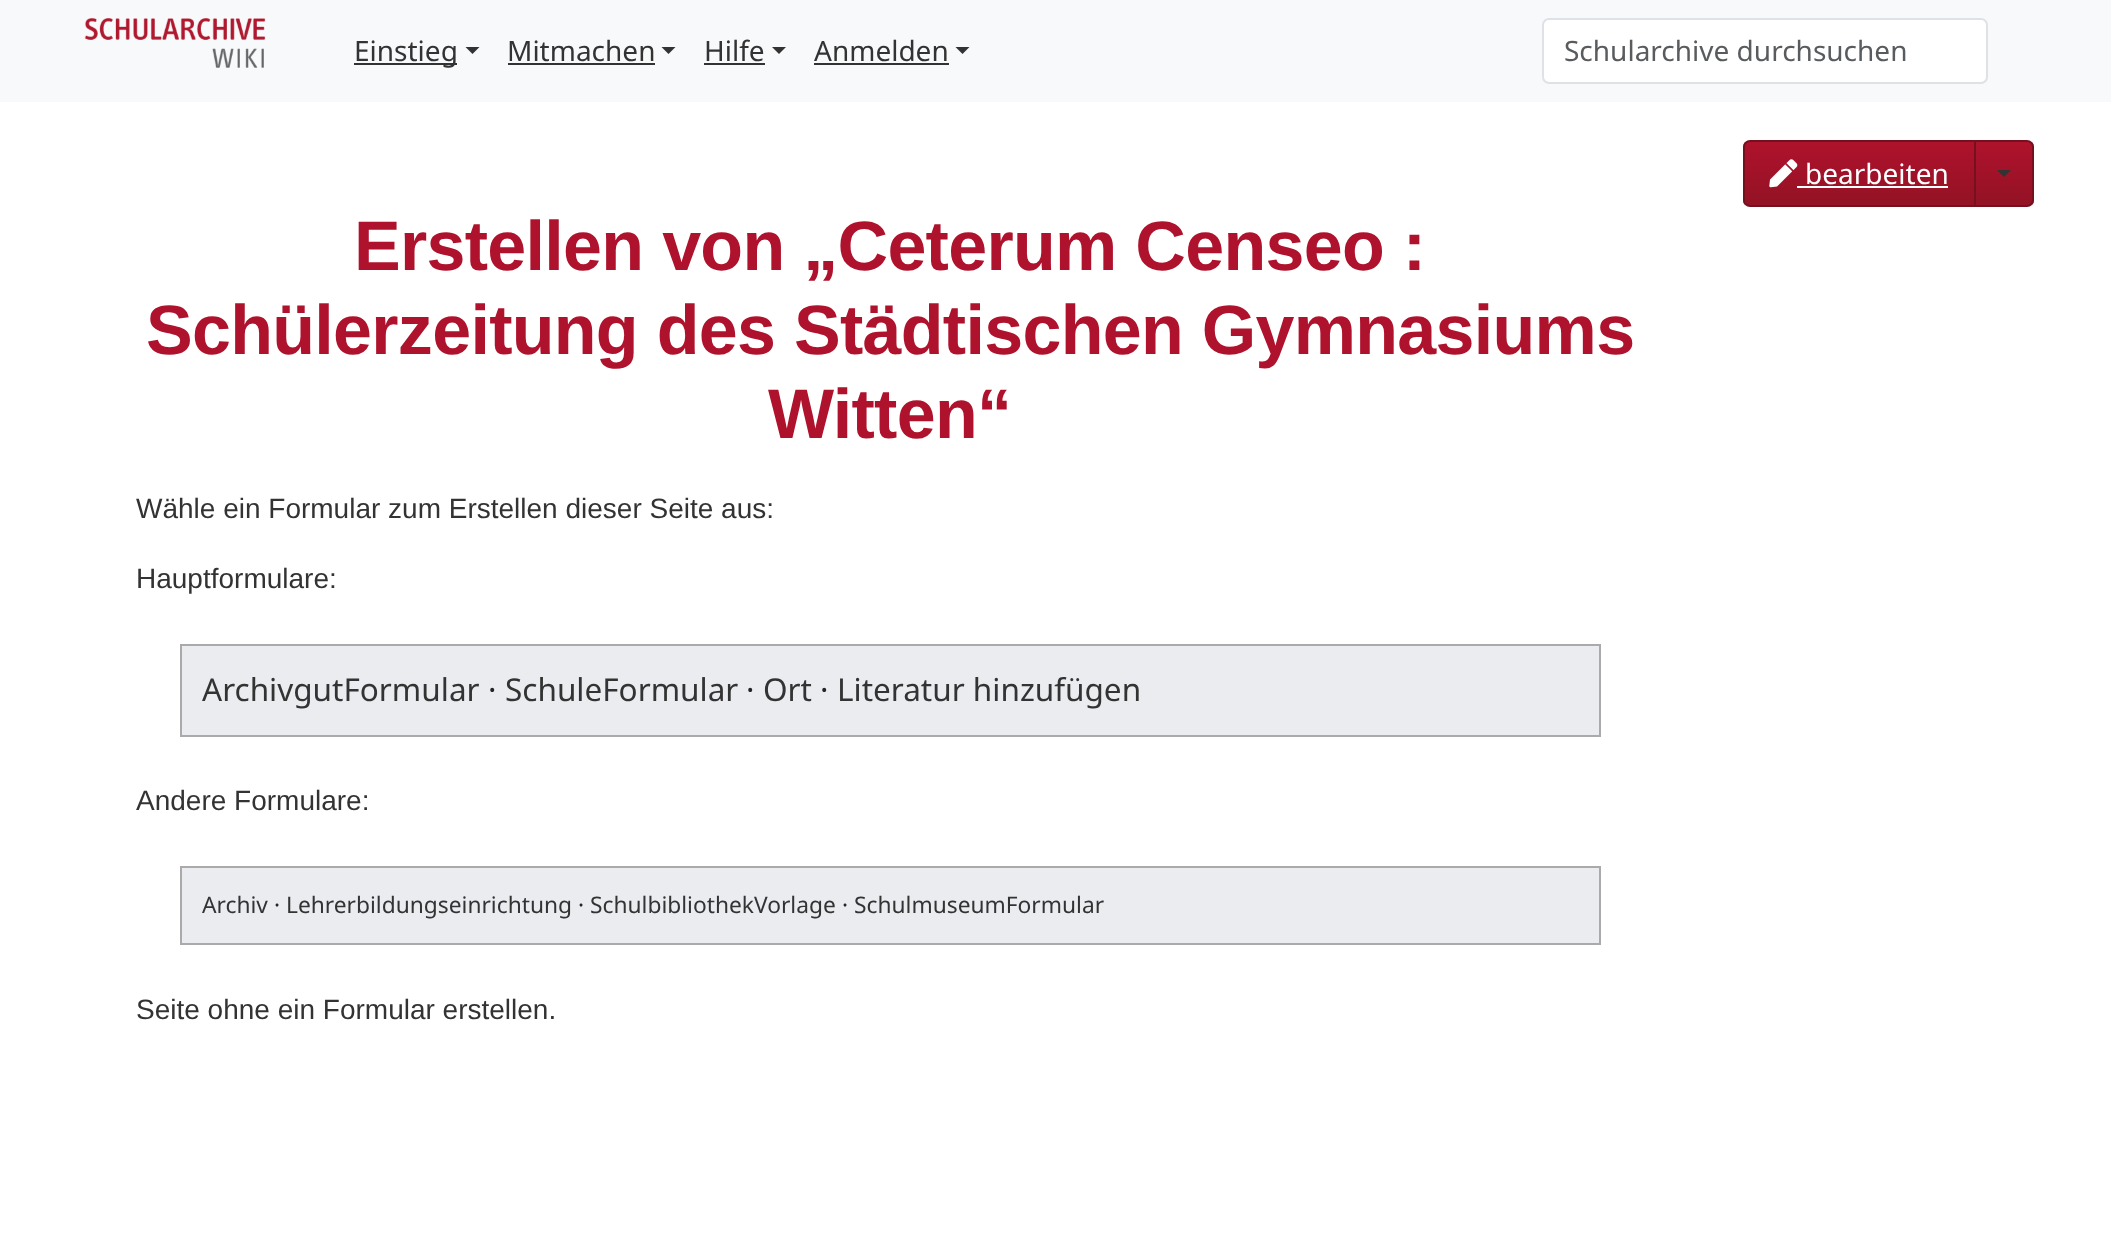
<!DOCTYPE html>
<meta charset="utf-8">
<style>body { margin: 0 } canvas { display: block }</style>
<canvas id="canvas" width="2111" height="1245"></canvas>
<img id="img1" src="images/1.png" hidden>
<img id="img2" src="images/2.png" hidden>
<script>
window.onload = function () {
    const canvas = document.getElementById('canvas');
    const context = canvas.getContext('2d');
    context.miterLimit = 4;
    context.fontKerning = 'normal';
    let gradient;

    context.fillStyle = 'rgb(255, 255, 255)';
    context.fillRect(0, 0, 2111, 1245);
    context.fillStyle = 'rgb(248, 249, 250)';
    context.fillRect(0, 0, 2111, 102);
    context.drawImage(document.getElementById('img1'), 84, 18, 182, 50);
    context.fillStyle = 'rgb(51, 51, 51)';
    context.fillRect(354, 63, 103, 2);
    context.beginPath();
    context.moveTo(465.5, 47);
    context.lineTo(479.5, 47);
    context.lineTo(472.5, 54);
    context.closePath();
    context.fill();
    context.fillRect(508, 63, 147, 2);
    context.beginPath();
    context.moveTo(661.5, 47);
    context.lineTo(675.5, 47);
    context.lineTo(668.5, 54);
    context.closePath();
    context.fill();
    context.fillRect(704, 63, 61, 2);
    context.beginPath();
    context.moveTo(772, 47);
    context.lineTo(786, 47);
    context.lineTo(779, 54);
    context.closePath();
    context.fill();
    context.fillRect(814, 63, 135, 2);
    context.beginPath();
    context.moveTo(955.5, 47);
    context.lineTo(969.5, 47);
    context.lineTo(962.5, 54);
    context.closePath();
    context.fill();
    context.fillStyle = 'rgb(255, 255, 255)';
    context.beginPath();
    context.roundRect(1543, 19, 444, 64, 6);
    context.fill();
    context.strokeStyle = 'rgb(222, 226, 230)';
    context.lineWidth = 2;
    context.stroke();
    context.save();
    context.beginPath();
    context.roundRect(1743, 140, 233, 67, [7, 0, 0, 7]);
    context.clip();
    gradient = context.createLinearGradient(1859, 142, 1859, 205);
    gradient.addColorStop(0, 'rgb(175, 18, 44)');
    gradient.addColorStop(1, 'rgb(147, 18, 37)');
    context.fillStyle = gradient;
    context.fillRect(1743, 142, 231, 63);
    context.restore();
    context.beginPath();
    context.roundRect(1744, 141, 231, 65, [6, 0, 0, 6]);
    context.strokeStyle = 'rgb(117, 17, 30)';
    context.stroke();
    context.drawImage(document.getElementById('img2'), 1769, 159, 29, 29);
    context.fillRect(1797, 186, 151, 2);
    context.save();
    context.beginPath();
    context.roundRect(1974, 140, 60, 67, [0, 7, 7, 0]);
    context.clip();
    gradient = context.createLinearGradient(2004, 142, 2004, 205);
    gradient.addColorStop(0, 'rgb(175, 18, 44)');
    gradient.addColorStop(1, 'rgb(147, 18, 37)');
    context.fillStyle = gradient;
    context.fillRect(1976, 142, 58, 63);
    context.restore();
    context.beginPath();
    context.roundRect(1975, 141, 58, 65, [0, 6, 6, 0]);
    context.stroke();
    context.fillStyle = 'rgb(51, 51, 51)';
    context.beginPath();
    context.moveTo(1997, 170);
    context.lineTo(2011, 170);
    context.lineTo(2004, 177);
    context.closePath();
    context.fill();
    context.fillStyle = 'rgb(234, 236, 240)';
    context.beginPath();
    context.rect(181, 645, 1419, 91);
    context.fill();
    context.strokeStyle = 'rgb(170, 170, 170)';
    context.stroke();
    context.beginPath();
    context.rect(181, 867, 1419, 77);
    context.fill();
    context.stroke();
    context.font = '28px Noto Sans';
    context.fillStyle = 'rgb(51, 51, 51)';
    context.fillText('Einstieg', 354, 61);
    context.fillText('Mitmachen', 507, 61);
    context.fillText('Hilfe', 704, 61);
    context.fillText('Anmelden', 814, 61);
    context.fillStyle = 'rgb(89, 92, 95)';
    context.fillText('Schularchive durchsuchen', 1564, 61);
    context.fillStyle = 'rgb(255, 255, 255)';
    context.fillText('bearbeiten', 1805, 184);
    context.letterSpacing = '-0.7px';
    context.font = 'bold 70px Liberation Sans';
    context.fillStyle = 'rgb(175, 18, 44)';
    context.fillText('Erstellen von „Ceterum Censeo :', 354, 270);
    context.fillText('Schülerzeitung des Städtischen Gymnasiums', 146, 354);
    context.fillText('Witten“', 768, 438);
    context.letterSpacing = '0px';
    context.font = '28px Liberation Sans';
    context.fillStyle = 'rgb(51, 51, 51)';
    context.fillText('Wähle ein Formular zum Erstellen dieser Seite aus:', 136, 518);
    context.fillText('Hauptformulare:', 136, 588);
    context.font = '31.5px Noto Sans';
    context.fillText('ArchivgutFormular', 202, 701);
    context.fillStyle = 'rgb(33, 37, 41)';
    context.fillText('·', 488, 701);
    context.fillStyle = 'rgb(51, 51, 51)';
    context.fillText('SchuleFormular', 505, 701);
    context.fillStyle = 'rgb(33, 37, 41)';
    context.fillText('·', 746, 701);
    context.fillStyle = 'rgb(51, 51, 51)';
    context.fillText('Ort', 763, 701);
    context.fillStyle = 'rgb(33, 37, 41)';
    context.fillText('·', 820, 701);
    context.fillStyle = 'rgb(51, 51, 51)';
    context.fillText('Literatur hinzufügen', 837, 701);
    context.font = '28px Liberation Sans';
    context.fillText('Andere Formulare:', 136, 810);
    context.font = '22.75px Noto Sans';
    context.fillText('Archiv', 202, 913);
    context.fillStyle = 'rgb(33, 37, 41)';
    context.fillText('·', 274, 913);
    context.fillStyle = 'rgb(51, 51, 51)';
    context.fillText('Lehrerbildungseinrichtung', 286, 913);
    context.fillStyle = 'rgb(33, 37, 41)';
    context.fillText('·', 578, 913);
    context.fillStyle = 'rgb(51, 51, 51)';
    context.fillText('SchulbibliothekVorlage', 590, 913);
    context.fillStyle = 'rgb(33, 37, 41)';
    context.fillText('·', 842, 913);
    context.fillStyle = 'rgb(51, 51, 51)';
    context.fillText('SchulmuseumFormular', 854, 913);
    context.font = '28px Liberation Sans';
    context.fillText('Seite ohne ein Formular erstellen.', 136, 1019);
};
</script>
